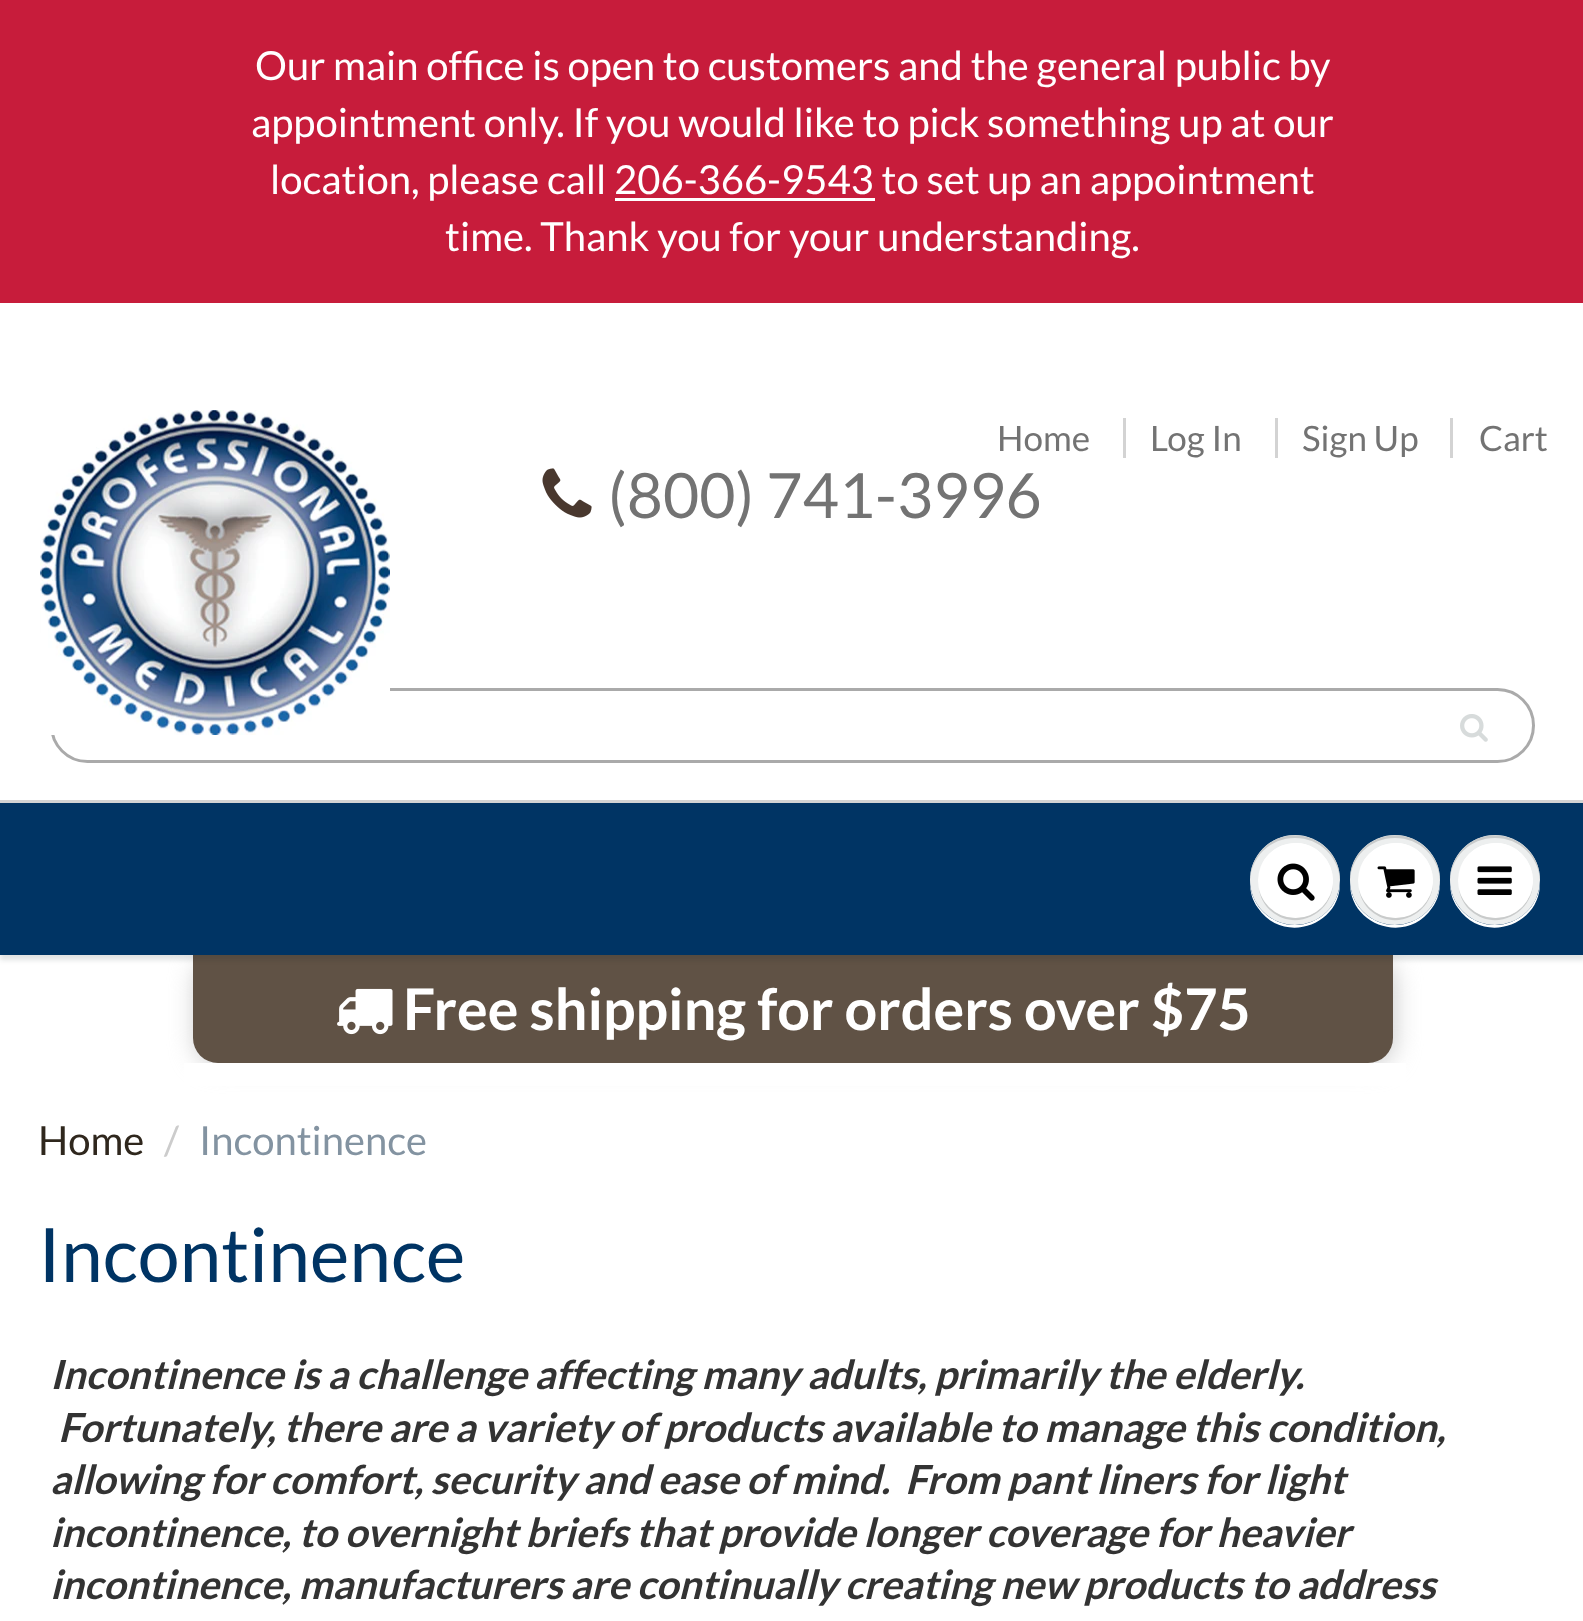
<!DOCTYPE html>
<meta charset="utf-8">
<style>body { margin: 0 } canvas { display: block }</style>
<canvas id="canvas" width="1583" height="1621"></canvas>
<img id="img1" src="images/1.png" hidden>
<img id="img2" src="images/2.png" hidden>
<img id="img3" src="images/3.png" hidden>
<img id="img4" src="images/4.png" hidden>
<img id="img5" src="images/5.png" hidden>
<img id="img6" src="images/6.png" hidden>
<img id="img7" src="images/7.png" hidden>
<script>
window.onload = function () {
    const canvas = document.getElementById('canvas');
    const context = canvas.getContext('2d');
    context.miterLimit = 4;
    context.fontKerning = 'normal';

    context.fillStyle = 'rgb(255, 255, 255)';
    context.fillRect(0, 0, 1583, 1621);
    context.fillStyle = 'rgb(199, 28, 59)';
    context.fillRect(0, 0, 1583, 303);
    context.fillStyle = 'rgb(255, 255, 255)';
    context.fillRect(615, 198, 260, 3);
    context.fillStyle = 'rgb(204, 204, 204)';
    context.filter = 'blur(12.5px)';
    context.beginPath();
    context.roundRect(195, 958, 1200, 107, 25);
    context.fill();
    context.filter = 'none';
    context.fillStyle = 'rgb(96, 82, 69)';
    context.beginPath();
    context.roundRect(193, 955, 1200, 108, [0, 0, 25, 25]);
    context.fill();
    context.fillStyle = 'rgba(11, 25, 28, 0.12)';
    context.filter = 'blur(2.5px)';
    context.beginPath();
    context.rect(0, 805, 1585, 155);
    context.fill();
    context.filter = 'none';
    context.fillStyle = 'rgb(0, 52, 100)';
    context.fillRect(0, 803, 1583, 152);
    context.fillStyle = 'rgb(211, 211, 211)';
    context.fillRect(0, 800, 1583, 3);
    context.beginPath();
    context.roundRect(51.5, 689.5, 1482, 72, 36);
    context.strokeStyle = 'rgb(170, 170, 170)';
    context.lineWidth = 3;
    context.stroke();
    context.drawImage(document.getElementById('img1'), 40, 410, 350, 325);
    context.fillStyle = 'rgb(255, 255, 255)';
    context.beginPath();
    context.moveTo(1250, 882);
    context.bezierCurveTo(1250, 891, 1252, 900, 1258, 908);
    context.bezierCurveTo(1283, 945, 1341, 926, 1340, 882);
    context.bezierCurveTo(1339, 906, 1319, 925, 1295, 925);
    context.bezierCurveTo(1271, 925, 1251, 906, 1250, 882);
    context.closePath();
    context.fill();
    context.fillStyle = 'rgb(237, 239, 239)';
    context.beginPath();
    context.arc(1295, 880, 45, 0, 2 * Math.PI);
    context.fill();
    context.fillStyle = 'rgb(201, 203, 203)';
    context.beginPath();
    context.moveTo(1295, 838);
    context.bezierCurveTo(1320, 838, 1339, 857, 1340, 881);
    context.bezierCurveTo(1341, 837, 1283, 818, 1258, 855);
    context.bezierCurveTo(1252, 863, 1250, 872, 1250, 881);
    context.bezierCurveTo(1251, 857, 1270, 838, 1295, 838);
    context.closePath();
    context.fill();
    context.beginPath();
    context.moveTo(1259, 889);
    context.bezierCurveTo(1260, 897, 1264, 905, 1271, 911);
    context.bezierCurveTo(1299, 935, 1340, 908, 1332, 874);
    context.bezierCurveTo(1333, 881, 1332, 888, 1330, 895);
    context.bezierCurveTo(1316, 928, 1267, 923, 1259, 889);
    context.closePath();
    context.fill();
    context.fillStyle = 'rgb(255, 255, 255)';
    context.beginPath();
    context.arc(1295.5, 880.5, 37.5, 0, 2 * Math.PI);
    context.fill();
    context.beginPath();
    context.moveTo(1295, 845);
    context.bezierCurveTo(1323, 845, 1339, 874, 1329, 898);
    context.bezierCurveTo(1343, 871, 1319, 837, 1288, 844);
    context.bezierCurveTo(1281, 845, 1274, 849, 1269, 854);
    context.bezierCurveTo(1262, 861, 1258, 871, 1258, 881);
    context.bezierCurveTo(1258, 862, 1274, 845, 1295, 845);
    context.closePath();
    context.fill();
    context.drawImage(document.getElementById('img2'), 1277, 863, 38, 38);
    context.beginPath();
    context.moveTo(1350, 882);
    context.bezierCurveTo(1349, 926, 1407, 945, 1432, 908);
    context.bezierCurveTo(1438, 900, 1440, 891, 1440, 882);
    context.bezierCurveTo(1439, 906, 1419, 925, 1395, 925);
    context.bezierCurveTo(1371, 925, 1351, 906, 1350, 882);
    context.closePath();
    context.fill();
    context.fillStyle = 'rgb(237, 239, 239)';
    context.beginPath();
    context.arc(1395, 880, 45, 0, 2 * Math.PI);
    context.fill();
    context.fillStyle = 'rgb(201, 203, 203)';
    context.beginPath();
    context.moveTo(1395, 838);
    context.bezierCurveTo(1420, 838, 1439, 857, 1440, 881);
    context.bezierCurveTo(1440, 872, 1438, 863, 1432, 855);
    context.bezierCurveTo(1407, 818, 1349, 837, 1350, 881);
    context.bezierCurveTo(1351, 857, 1370, 838, 1395, 838);
    context.closePath();
    context.fill();
    context.beginPath();
    context.moveTo(1359, 889);
    context.bezierCurveTo(1360, 897, 1364, 905, 1371, 911);
    context.bezierCurveTo(1399, 935, 1440, 908, 1432, 874);
    context.bezierCurveTo(1433, 881, 1432, 888, 1430, 895);
    context.bezierCurveTo(1416, 928, 1367, 923, 1359, 889);
    context.closePath();
    context.fill();
    context.fillStyle = 'rgb(255, 255, 255)';
    context.beginPath();
    context.arc(1395.5, 880.5, 37.5, 0, 2 * Math.PI);
    context.fill();
    context.beginPath();
    context.moveTo(1395, 845);
    context.bezierCurveTo(1423, 845, 1439, 874, 1429, 898);
    context.bezierCurveTo(1443, 871, 1419, 837, 1388, 844);
    context.bezierCurveTo(1381, 845, 1374, 849, 1369, 854);
    context.bezierCurveTo(1362, 861, 1358, 871, 1358, 881);
    context.bezierCurveTo(1358, 862, 1374, 845, 1395, 845);
    context.closePath();
    context.fill();
    context.drawImage(document.getElementById('img3'), 1377, 866, 38, 32);
    context.beginPath();
    context.moveTo(1450, 882);
    context.bezierCurveTo(1450, 891, 1452, 900, 1458, 908);
    context.bezierCurveTo(1483, 945, 1541, 926, 1540, 882);
    context.bezierCurveTo(1539, 906, 1519, 925, 1495, 925);
    context.bezierCurveTo(1471, 925, 1451, 906, 1450, 882);
    context.closePath();
    context.fill();
    context.fillStyle = 'rgb(237, 239, 239)';
    context.beginPath();
    context.arc(1495, 880, 45, 0, 2 * Math.PI);
    context.fill();
    context.fillStyle = 'rgb(201, 203, 203)';
    context.beginPath();
    context.moveTo(1495, 838);
    context.bezierCurveTo(1520, 838, 1539, 857, 1540, 881);
    context.bezierCurveTo(1541, 837, 1483, 818, 1458, 855);
    context.bezierCurveTo(1452, 863, 1450, 872, 1450, 881);
    context.bezierCurveTo(1451, 857, 1470, 838, 1495, 838);
    context.closePath();
    context.fill();
    context.beginPath();
    context.moveTo(1459, 889);
    context.bezierCurveTo(1460, 897, 1464, 905, 1471, 911);
    context.bezierCurveTo(1499, 935, 1540, 908, 1532, 874);
    context.bezierCurveTo(1533, 881, 1532, 888, 1530, 895);
    context.bezierCurveTo(1516, 928, 1467, 923, 1459, 889);
    context.closePath();
    context.fill();
    context.fillStyle = 'rgb(255, 255, 255)';
    context.beginPath();
    context.arc(1495.5, 880.5, 37.5, 0, 2 * Math.PI);
    context.fill();
    context.beginPath();
    context.moveTo(1495, 845);
    context.bezierCurveTo(1523, 845, 1539, 874, 1529, 898);
    context.bezierCurveTo(1543, 871, 1519, 837, 1488, 844);
    context.bezierCurveTo(1481, 845, 1474, 849, 1469, 854);
    context.bezierCurveTo(1462, 861, 1458, 871, 1458, 881);
    context.bezierCurveTo(1458, 862, 1474, 845, 1495, 845);
    context.closePath();
    context.fill();
    context.drawImage(document.getElementById('img4'), 1477, 866, 35, 29);
    context.fillStyle = 'rgb(211, 211, 211)';
    context.fillRect(1123, 418, 3, 40);
    context.fillRect(1275, 418, 3, 40);
    context.fillRect(1450, 418, 3, 40);
    context.drawImage(document.getElementById('img5'), 542, 468, 50, 50);
    context.drawImage(document.getElementById('img6'), 1460, 714, 28, 28);
    context.drawImage(document.getElementById('img7'), 337, 988, 56, 47);
    context.fillStyle = 'rgb(255, 255, 255)';
    context.fillRect(184, 1063, 1222, 23);
    context.font = '40px Lato';
    context.fillText('Our main office is open to customers and the general public by', 255, 80);
    context.fillText('appointment only. If you would like to pick something up at our', 251, 137);
    context.fillText('location, please call 206-366-9543 to set up an appointment', 270, 194);
    context.fillText('time. Thank you for your understanding.', 445, 251);
    context.font = '35px Lato';
    context.fillStyle = 'rgb(115, 115, 115)';
    context.fillText('Home', 997, 451);
    context.fillText('Log In', 1150, 451);
    context.fillText('Sign Up', 1302, 451);
    context.fillText('Cart', 1479, 451);
    context.font = '62.5px Lato';
    context.fillText('(800) 741-3996', 608, 518);
    context.font = 'bold 57.5px Lato';
    context.fillStyle = 'rgb(255, 255, 255)';
    context.fillText('Free shipping for orders over $75', 403, 1030);
    context.font = '40px Lato';
    context.fillStyle = 'rgb(47, 39, 29)';
    context.fillText('Home', 38, 1155);
    context.fillStyle = 'rgb(204, 204, 204)';
    context.fillText('/', 164, 1155);
    context.fillStyle = 'rgb(131, 147, 161)';
    context.fillText('Incontinence', 199, 1155);
    context.font = '75px Lato';
    context.fillStyle = 'rgb(0, 52, 100)';
    context.fillText('Incontinence', 38, 1282);
    context.font = 'italic bold 40px Lato';
    context.fillStyle = 'rgb(51, 51, 51)';
    context.fillText('Incontinence is a challenge affecting many adults, primarily the elderly.', 50, 1389);
    context.fillText('Fortunately, there are a variety of products available to manage this condition,', 58, 1442);
    context.fillText('allowing for comfort, security and ease of mind.  From pant liners for light', 50, 1494);
    context.fillText('incontinence, to overnight briefs that provide longer coverage for heavier', 50, 1547);
    context.fillText('incontinence, manufacturers are continually creating new products to address', 50, 1599);
};
</script>
